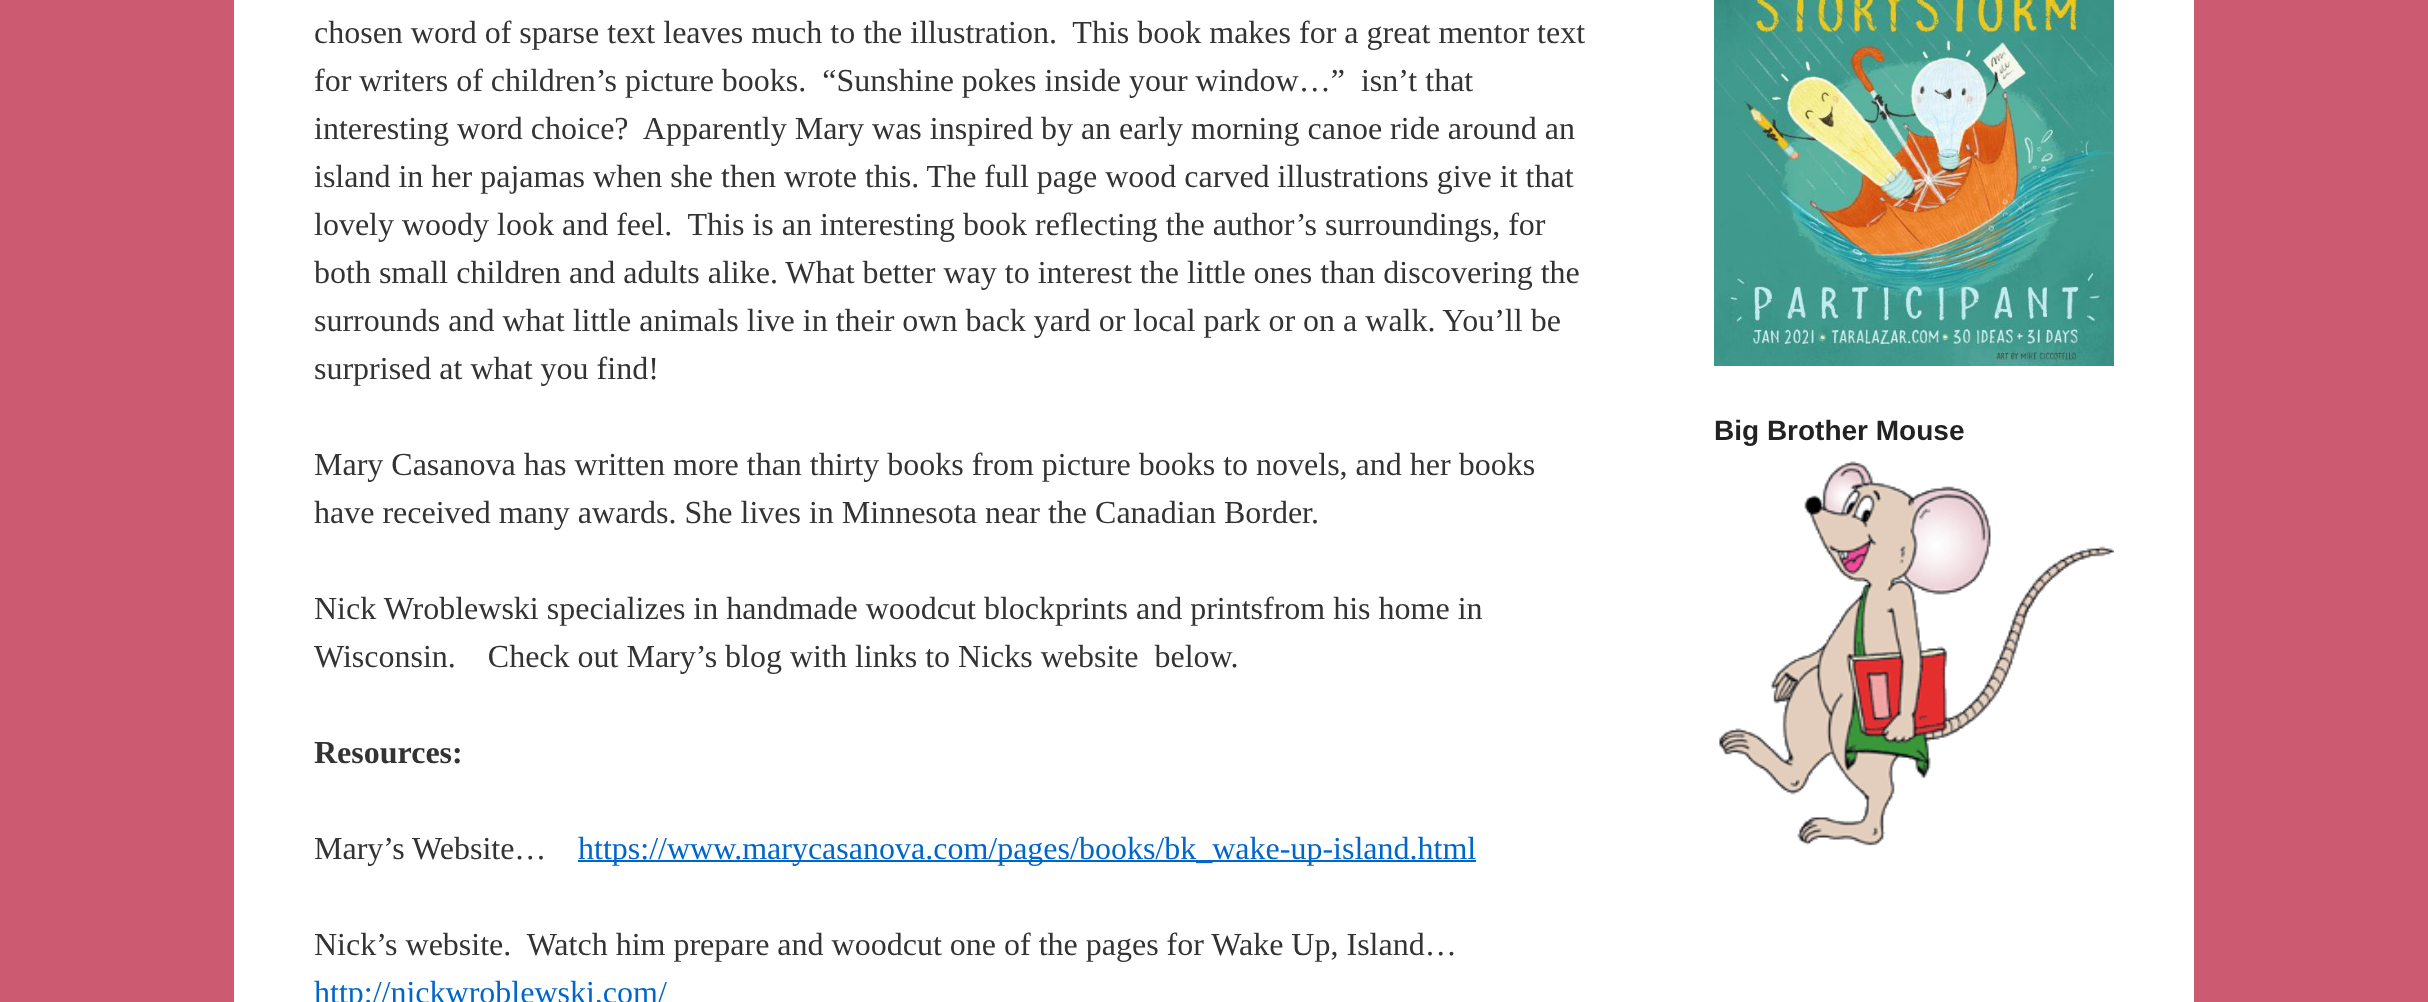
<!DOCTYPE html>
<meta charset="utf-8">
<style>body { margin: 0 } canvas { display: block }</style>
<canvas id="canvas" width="2428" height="1002"></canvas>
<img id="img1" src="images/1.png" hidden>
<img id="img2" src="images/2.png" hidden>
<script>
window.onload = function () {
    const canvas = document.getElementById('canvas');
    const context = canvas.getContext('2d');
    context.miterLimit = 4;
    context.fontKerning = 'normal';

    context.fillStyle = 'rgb(204, 91, 114)';
    context.fillRect(0, 0, 2428, 1002);
    context.fillStyle = 'rgb(255, 255, 255)';
    context.fillRect(234, 0, 1960, 1002);
    context.fillStyle = 'rgb(0, 102, 204)';
    context.fillRect(578, 860, 898, 2);
    context.drawImage(document.getElementById('img1'), 1714, 0, 400, 366);
    context.drawImage(document.getElementById('img2'), 1719, 461, 395, 385);
    context.font = '32px Liberation Serif';
    context.fillStyle = 'rgb(51, 51, 51)';
    context.fillText('chosen word of sparse text leaves much to the illustration.  This book makes for a great mentor text', 314, 43);
    context.fillText('for writers of children’s picture books.  “Sunshine pokes inside your window…”  isn’t that', 314, 91);
    context.fillText('interesting word choice?  Apparently Mary was inspired by an early morning canoe ride around an', 314, 139);
    context.fillText('island in her pajamas when she then wrote this. The full page wood carved illustrations give it that', 314, 187);
    context.fillText('lovely woody look and feel.  This is an interesting book reflecting the author’s surroundings, for', 314, 235);
    context.fillText('both small children and adults alike. What better way to interest the little ones than discovering the', 314, 283);
    context.fillText('surrounds and what little animals live in their own back yard or local park or on a walk. You’ll be', 314, 331);
    context.fillText('surprised at what you find!', 314, 379);
    context.fillText('Mary Casanova has written more than thirty books from picture books to novels, and her books', 314, 475);
    context.fillText('have received many awards. She lives in Minnesota near the Canadian Border.', 314, 523);
    context.fillText('Nick Wroblewski specializes in handmade woodcut blockprints and printsfrom his home in', 314, 619);
    context.fillText('Wisconsin.    Check out Mary’s blog with links to Nicks website  below.', 314, 667);
    context.font = 'bold 32px Liberation Serif';
    context.fillText('Resources:', 314, 763);
    context.font = '32px Liberation Serif';
    context.fillText('Mary’s Website…', 314, 859);
    context.fillStyle = 'rgb(0, 102, 204)';
    context.fillText('https://www.marycasanova.com/pages/books/bk_wake-up-island.html', 578, 859);
    context.fillStyle = 'rgb(51, 51, 51)';
    context.fillText('Nick’s website.  Watch him prepare and woodcut one of the pages for Wake Up, Island…', 314, 955);
    context.fillStyle = 'rgb(0, 102, 204)';
    context.fillText('http://nickwroblewski.com/', 314, 1003);
    context.font = 'bold 28px Liberation Sans';
    context.fillStyle = 'rgb(34, 34, 34)';
    context.fillText('Big Brother Mouse', 1714, 440);
};
</script>
